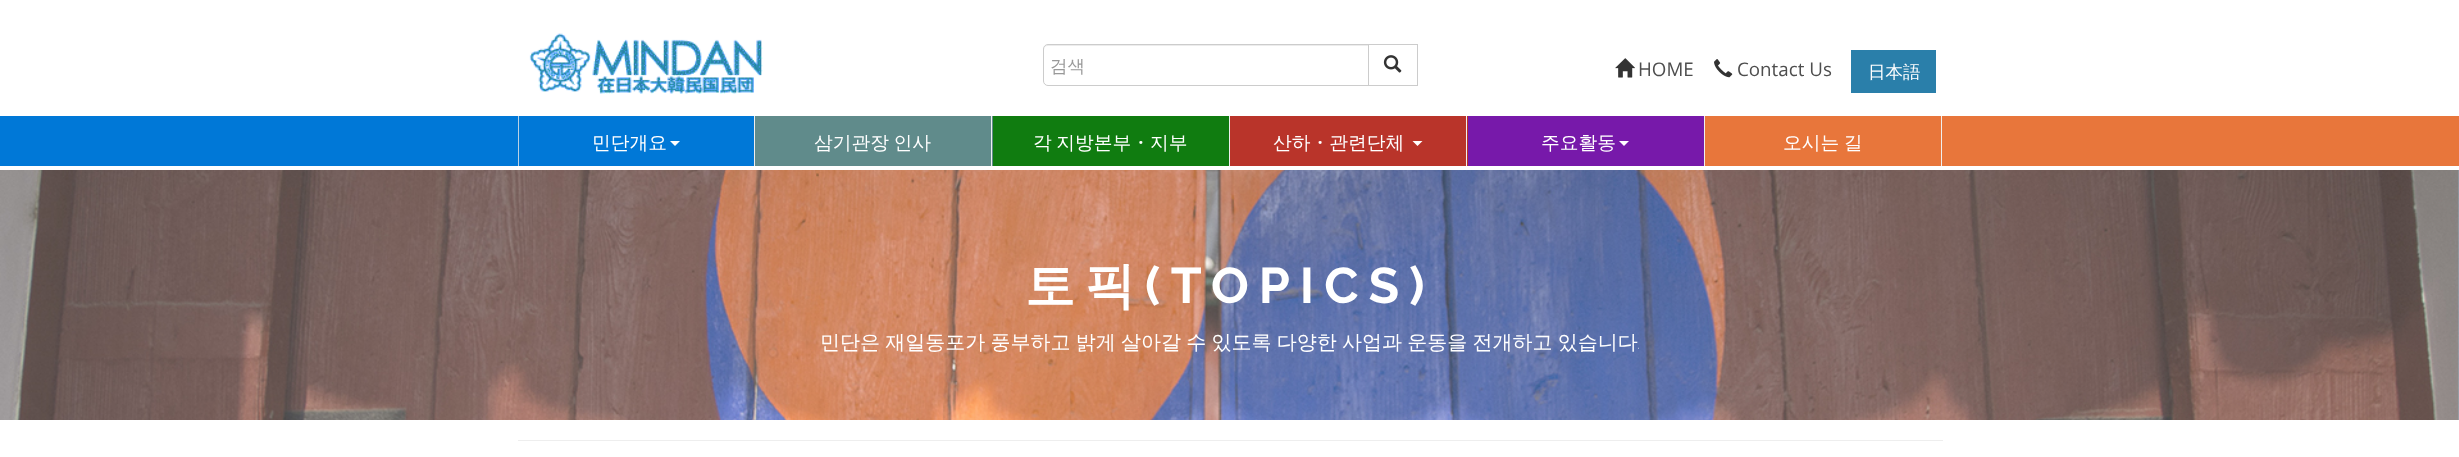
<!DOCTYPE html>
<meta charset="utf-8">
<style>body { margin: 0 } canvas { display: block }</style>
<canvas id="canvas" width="2459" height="457"></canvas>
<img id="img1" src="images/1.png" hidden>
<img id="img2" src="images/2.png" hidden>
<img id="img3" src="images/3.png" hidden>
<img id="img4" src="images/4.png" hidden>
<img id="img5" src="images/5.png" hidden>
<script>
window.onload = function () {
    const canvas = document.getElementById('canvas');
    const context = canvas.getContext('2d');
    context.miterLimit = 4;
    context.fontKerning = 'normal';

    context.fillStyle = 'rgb(255, 255, 255)';
    context.fillRect(0, 0, 2459, 457);
    context.drawImage(document.getElementById('img1'), 529, 33, 234, 61);
    context.fillStyle = 'rgb(236, 236, 236)';
    context.beginPath();
    context.moveTo(1048, 46);
    context.lineTo(1368, 46);
    context.lineTo(1368, 45);
    context.lineTo(1048, 45);
    context.bezierCurveTo(1046, 45, 1044, 47, 1044, 49);
    context.lineTo(1044, 50);
    context.bezierCurveTo(1044, 48, 1045, 46, 1048, 46);
    context.closePath();
    context.fill();
    context.beginPath();
    context.roundRect(1043.5, 44.5, 325, 41, [4.5, 0, 0, 4.5]);
    context.strokeStyle = 'rgb(204, 204, 204)';
    context.stroke();
    context.strokeRect(1368.5, 44.5, 49, 41);
    context.drawImage(document.getElementById('img2'), 1383, 55, 19, 18);
    context.drawImage(document.getElementById('img3'), 1615, 58, 20, 20);
    context.drawImage(document.getElementById('img4'), 1714, 59, 19, 19);
    context.fillStyle = 'rgb(42, 127, 170)';
    context.fillRect(1851, 50, 85, 43);
    context.fillStyle = 'rgb(0, 120, 215)';
    context.fillRect(0, 116, 518, 50);
    context.fillStyle = 'rgb(232, 118, 59)';
    context.fillRect(1705, 116, 754, 50);
    context.fillStyle = 'rgb(0, 120, 215)';
    context.fillRect(519, 116, 235, 50);
    context.fillStyle = 'rgb(186, 210, 229)';
    context.fillRect(518, 116, 1, 50);
    context.fillStyle = 'rgb(239, 239, 239)';
    context.fillRect(754, 116, 1, 50);
    context.fillStyle = 'rgb(255, 255, 255)';
    context.beginPath();
    context.moveTo(670, 141);
    context.lineTo(680, 141);
    context.lineTo(675, 146);
    context.closePath();
    context.fill();
    context.fillStyle = 'rgb(96, 139, 139)';
    context.fillRect(755, 116, 238, 50);
    context.fillStyle = 'rgb(239, 239, 239)';
    context.fillRect(991, 116, 1, 50);
    context.fillStyle = 'rgb(16, 124, 16)';
    context.fillRect(993, 116, 236, 50);
    context.fillStyle = 'rgb(239, 239, 239)';
    context.fillRect(1229, 116, 1, 50);
    context.fillStyle = 'rgb(185, 52, 42)';
    context.fillRect(1230, 116, 238, 50);
    context.fillStyle = 'rgb(239, 239, 239)';
    context.fillRect(1466, 116, 1, 50);
    context.fillStyle = 'rgb(255, 255, 255)';
    context.beginPath();
    context.moveTo(1412.5, 141);
    context.lineTo(1422.5, 141);
    context.lineTo(1417.5, 146);
    context.closePath();
    context.fill();
    context.fillStyle = 'rgb(119, 25, 170)';
    context.fillRect(1468, 116, 236, 50);
    context.fillStyle = 'rgb(239, 239, 239)';
    context.fillRect(1704, 116, 1, 50);
    context.fillStyle = 'rgb(255, 255, 255)';
    context.beginPath();
    context.moveTo(1619, 141);
    context.lineTo(1629, 141);
    context.lineTo(1624, 146);
    context.closePath();
    context.fill();
    context.fillStyle = 'rgb(239, 239, 239)';
    context.fillRect(1941, 116, 1, 50);
    context.drawImage(document.getElementById('img5'), 0, 170, 2459, 250);
    context.fillStyle = 'rgb(238, 238, 238)';
    context.fillRect(518, 440, 1425, 1);
    context.font = '500 17.5px WenQuanYi Zen Hei';
    context.fillStyle = 'rgb(153, 153, 153)';
    context.fillText('검색', 1050, 72);
    context.font = '18.75px Open Sans';
    context.fillStyle = 'rgb(78, 78, 78)';
    context.fillText('HOME', 1638, 76);
    context.fillText('Contact Us', 1737, 76);
    context.font = '500 17.5px WenQuanYi Zen Hei';
    context.fillStyle = 'rgb(255, 255, 255)';
    context.fillText('日本語', 1868, 78);
    context.font = '500 18.75px WenQuanYi Zen Hei';
    context.fillText('민단개요', 592, 149);
    context.wordSpacing = '-1px';
    context.fillText('삼기관장 인사', 814, 149);
    context.fillText('각 지방본부・지부', 1033, 149);
    context.wordSpacing = '0px';
    context.fillText('산하・관련단체', 1273, 149);
    context.fillText('주요활동', 1541, 149);
    context.wordSpacing = '-1px';
    context.fillText('오시는 길', 1783, 149);
    context.letterSpacing = '10px';
    context.wordSpacing = '0px';
    context.font = 'bold 50px WenQuanYi Zen Hei';
    context.fillText('토픽', 1025, 303);
    context.font = 'bold 50px Raleway';
    context.fillText('(TOPICS)', 1145, 303);
    context.letterSpacing = '0px';
    context.wordSpacing = '-0.75px';
    context.font = '500 20px WenQuanYi Zen Hei';
    context.fillText('민단은 재일동포가 풍부하고 밝게 살아갈 수 있도록 다양한 사업과 운동을 전개하고 있습니다', 820, 349);
    context.wordSpacing = '0px';
    context.font = '100 20px Raleway';
    context.fillText('.', 1637, 349);
};
</script>
